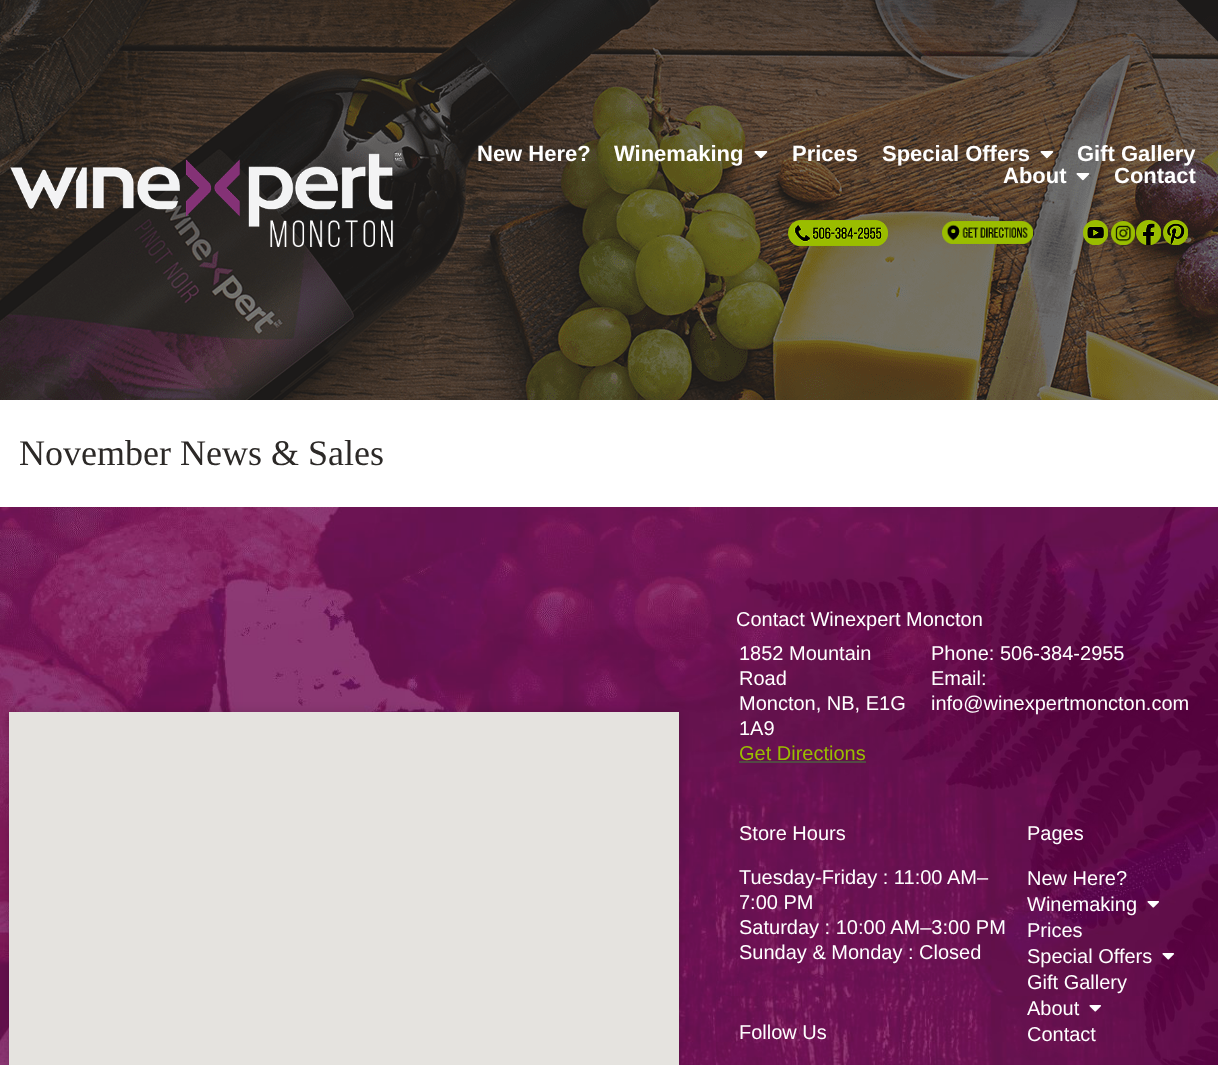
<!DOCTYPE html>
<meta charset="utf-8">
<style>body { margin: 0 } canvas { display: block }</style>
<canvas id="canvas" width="1218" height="1065"></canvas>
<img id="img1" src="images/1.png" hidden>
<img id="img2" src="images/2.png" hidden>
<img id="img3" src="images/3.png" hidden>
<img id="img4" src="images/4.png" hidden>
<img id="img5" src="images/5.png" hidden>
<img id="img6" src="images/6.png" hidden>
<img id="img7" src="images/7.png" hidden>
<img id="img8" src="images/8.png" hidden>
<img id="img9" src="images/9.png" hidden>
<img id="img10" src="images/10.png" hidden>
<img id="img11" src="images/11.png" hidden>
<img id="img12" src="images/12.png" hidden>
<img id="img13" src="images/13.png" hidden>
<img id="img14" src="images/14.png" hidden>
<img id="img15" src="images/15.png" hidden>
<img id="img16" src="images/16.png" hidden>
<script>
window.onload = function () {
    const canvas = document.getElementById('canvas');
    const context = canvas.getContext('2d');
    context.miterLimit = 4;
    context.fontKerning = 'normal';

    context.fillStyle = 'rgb(255, 255, 255)';
    context.fillRect(0, 0, 1218, 1065);
    context.drawImage(document.getElementById('img1'), 0, 0, 1218, 400);
    context.drawImage(document.getElementById('img2'), 10, 153, 392, 94);
    context.drawImage(document.getElementById('img3'), 754, 151, 14, 8);
    context.drawImage(document.getElementById('img4'), 1040, 151, 14, 8);
    context.drawImage(document.getElementById('img5'), 1076, 173, 14, 8);
    context.drawImage(document.getElementById('img6'), 788, 220, 100, 26);
    context.drawImage(document.getElementById('img7'), 942, 221, 91, 23);
    context.drawImage(document.getElementById('img8'), 1083, 220, 25, 25);
    context.drawImage(document.getElementById('img9'), 1111, 221, 24, 24);
    context.drawImage(document.getElementById('img10'), 1136, 220, 25, 25);
    context.drawImage(document.getElementById('img11'), 1163, 220, 25, 25);
    context.drawImage(document.getElementById('img12'), 0, 507, 1218, 558);
    context.drawImage(document.getElementById('img13'), 0, 507, 1218, 558);
    context.fillStyle = 'rgba(0, 0, 0, 0.15)';
    context.filter = 'blur(5px)';
    context.beginPath();
    context.rect(9, 712, 670, 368);
    context.fill();
    context.filter = 'none';
    context.fillStyle = 'rgb(229, 227, 223)';
    context.fillRect(9, 712, 670, 353);
    context.fillStyle = 'rgb(83, 74, 69)';
    context.fillRect(739, 761, 127, 2);
    context.drawImage(document.getElementById('img14'), 1147, 901, 12, 7);
    context.drawImage(document.getElementById('img15'), 1162, 953, 12, 7);
    context.drawImage(document.getElementById('img16'), 1089, 1005, 12, 7);
    context.font = 'bold 22px Liberation Sans';
    context.fillStyle = 'rgb(255, 255, 255)';
    context.fillText('New Here?', 477, 161);
    context.fillText('Winemaking', 614, 161);
    context.fillText('Prices', 792, 161);
    context.fillText('Special Offers', 882, 161);
    context.fillText('Gift Gallery', 1077, 161);
    context.fillText('About', 1003, 183);
    context.fillText('Contact', 1114, 183);
    context.font = '36px Liberation Serif';
    context.fillStyle = 'rgb(44, 41, 39)';
    context.fillText('November News & Sales', 19, 465);
    context.font = '20px Liberation Sans';
    context.fillStyle = 'rgb(255, 255, 255)';
    context.fillText('Contact Winexpert Moncton', 736, 626);
    context.fillText('1852 Mountain', 739, 660);
    context.fillText('Road', 739, 685);
    context.fillText('Moncton, NB, E1G', 739, 710);
    context.fillText('1A9', 739, 735);
    context.fillStyle = 'rgb(154, 189, 0)';
    context.fillText('Get Directions', 739, 760);
    context.fillStyle = 'rgb(255, 255, 255)';
    context.fillText('Phone: 506-384-2955', 931, 660);
    context.fillText('Email:', 931, 685);
    context.fillText('info@winexpertmoncton.com', 931, 710);
    context.fillText('Store Hours', 739, 840);
    context.fillText('Tuesday-Friday : 11:00 AM–', 739, 884);
    context.fillText('7:00 PM', 739, 909);
    context.fillText('Saturday : 10:00 AM–3:00 PM', 739, 934);
    context.fillText('Sunday & Monday : Closed', 739, 959);
    context.fillText('Follow Us', 739, 1039);
    context.fillText('Pages', 1027, 840);
    context.fillText('New Here?', 1027, 885);
    context.fillText('Winemaking', 1027, 911);
    context.fillText('Prices', 1027, 937);
    context.fillText('Special Offers', 1027, 963);
    context.fillText('Gift Gallery', 1027, 989);
    context.fillText('About', 1027, 1015);
    context.fillText('Contact', 1027, 1041);
};
</script>
